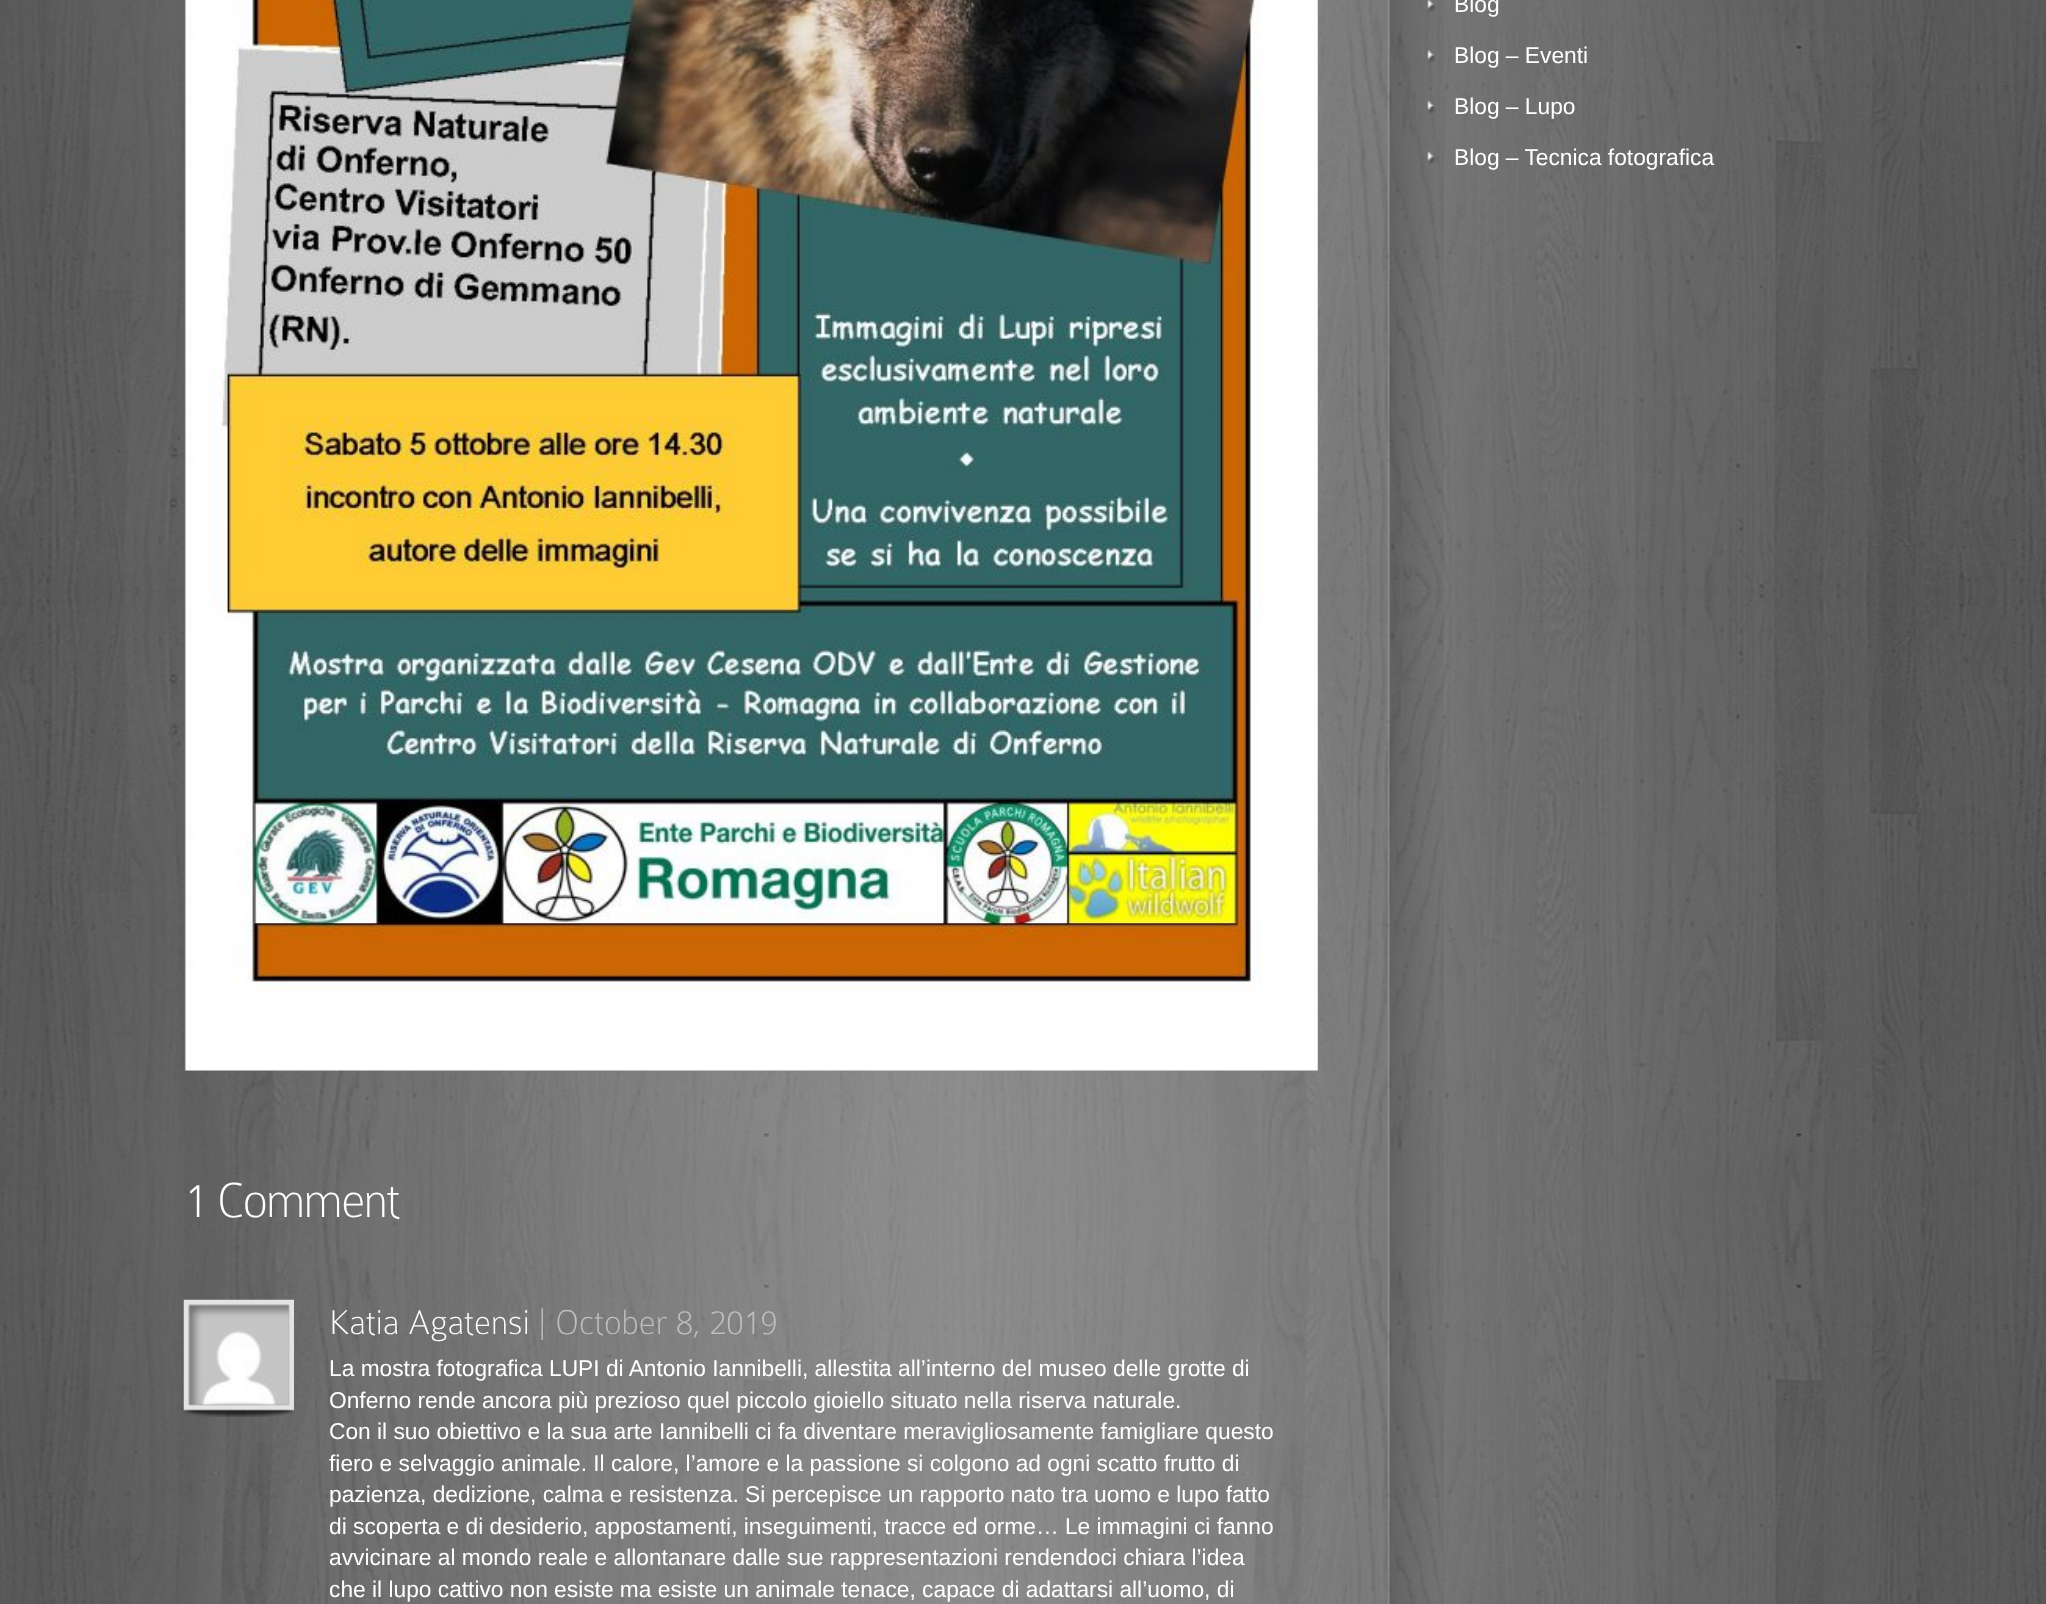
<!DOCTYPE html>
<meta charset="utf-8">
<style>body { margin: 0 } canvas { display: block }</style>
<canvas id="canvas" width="2046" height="1604"></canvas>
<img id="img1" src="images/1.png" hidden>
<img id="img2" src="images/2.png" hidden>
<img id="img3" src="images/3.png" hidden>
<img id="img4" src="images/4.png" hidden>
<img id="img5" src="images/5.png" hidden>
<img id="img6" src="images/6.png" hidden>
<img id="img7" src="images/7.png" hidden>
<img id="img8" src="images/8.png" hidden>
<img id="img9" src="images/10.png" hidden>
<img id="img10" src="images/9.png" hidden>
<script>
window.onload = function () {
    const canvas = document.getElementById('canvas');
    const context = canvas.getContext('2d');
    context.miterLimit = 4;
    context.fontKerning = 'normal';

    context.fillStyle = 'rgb(255, 255, 255)';
    context.fillRect(0, 0, 2046, 1604);
    context.drawImage(document.getElementById('img1'), 0, 0, 2046, 1604);
    context.drawImage(document.getElementById('img2'), 52, 0, 1830, 1604);
    context.drawImage(document.getElementById('img3'), 1387, 0, 57, 1604);
    context.drawImage(document.getElementById('img4'), 1427, 0, 8, 12);
    context.drawImage(document.getElementById('img5'), 1427, 50, 8, 13);
    context.drawImage(document.getElementById('img6'), 1427, 101, 8, 12);
    context.drawImage(document.getElementById('img7'), 1427, 151, 8, 13);
    context.drawImage(document.getElementById('img8'), 184, 0, 1134, 1071);
    context.drawImage(document.getElementById('img9'), 189, 1305, 100, 100);
    context.drawImage(document.getElementById('img10'), 183, 1299, 111, 118);
    context.font = '22.75px Liberation Sans';
    context.fillText('Blog', 1454, 12);
    context.fillText('Blog – Eventi', 1454, 63);
    context.fillText('Blog – Lupo', 1454, 114);
    context.fillText('Blog – Tecnica fotografica', 1454, 165);
    context.letterSpacing = '-1.75px';
    context.font = '100 52.5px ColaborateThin';
    context.fillText('1 Comment', 184, 1217);
    context.letterSpacing = '0px';
    context.font = '100 36.75px ColaborateThin';
    context.fillText('Katia Agatensi', 329, 1334);
    context.fillStyle = 'rgb(192, 191, 191)';
    context.fillText('| October 8, 2019', 538, 1334);
    context.font = '22.75px Liberation Sans';
    context.fillStyle = 'rgb(255, 255, 255)';
    context.fillText('La mostra fotografica LUPI di Antonio Iannibelli, allestita all’interno del museo delle grotte di', 329, 1376);
    context.fillText('Onferno rende ancora più prezioso quel piccolo gioiello situato nella riserva naturale.', 329, 1408);
    context.fillText('Con il suo obiettivo e la sua arte Iannibelli ci fa diventare meravigliosamente famigliare questo', 329, 1439);
    context.fillText('fiero e selvaggio animale. Il calore, l’amore e la passione si colgono ad ogni scatto frutto di', 329, 1471);
    context.fillText('pazienza, dedizione, calma e resistenza. Si percepisce un rapporto nato tra uomo e lupo fatto', 329, 1502);
    context.fillText('di scoperta e di desiderio, appostamenti, inseguimenti, tracce ed orme… Le immagini ci fanno', 329, 1534);
    context.fillText('avvicinare al mondo reale e allontanare dalle sue rappresentazioni rendendoci chiara l’idea', 329, 1565);
    context.fillText('che il lupo cattivo non esiste ma esiste un animale tenace, capace di adattarsi all’uomo, di', 329, 1597);
};
</script>
